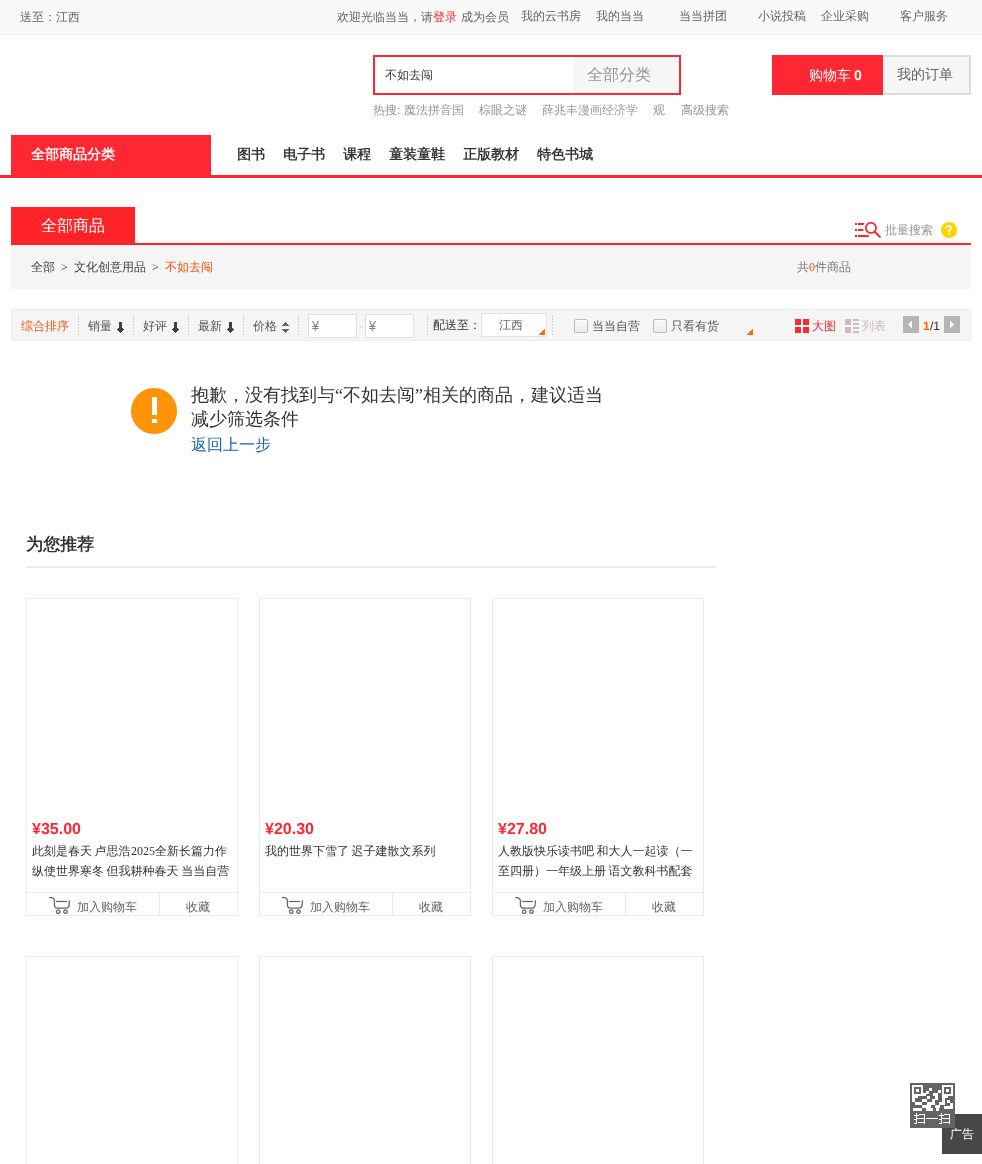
<!DOCTYPE html>
<meta charset="utf-8">
<style>body { margin: 0 } canvas { display: block }</style>
<canvas id="canvas" width="982" height="1164"></canvas>
<img id="img1" src="images/1.png" hidden>
<img id="img2" src="images/2.png" hidden>
<img id="img3" src="images/3.png" hidden>
<img id="img4" src="images/4.png" hidden>
<img id="img5" src="images/5.png" hidden>
<img id="img6" src="images/6.png" hidden>
<img id="img7" src="images/7.png" hidden>
<img id="img8" src="images/8.png" hidden>
<img id="img9" src="images/9.png" hidden>
<img id="img10" src="images/10.png" hidden>
<img id="img11" src="images/11.png" hidden>
<img id="img12" src="images/12.png" hidden>
<img id="img13" src="images/13.png" hidden>
<img id="img14" src="images/14.png" hidden>
<img id="img15" src="images/15.png" hidden>
<img id="img16" src="images/16.png" hidden>
<script>
window.onload = function () {
    const canvas = document.getElementById('canvas');
    const context = canvas.getContext('2d');
    context.miterLimit = 4;
    context.fontKerning = 'normal';

    context.fillStyle = 'rgb(255, 255, 255)';
    context.fillRect(0, 0, 982, 1164);
    context.fillStyle = 'rgb(249, 249, 249)';
    context.fillRect(0, 0, 982, 34);
    context.fillStyle = 'rgb(242, 242, 242)';
    context.fillRect(0, 34, 982, 1);
    context.fillStyle = 'rgb(255, 40, 50)';
    context.fillRect(373, 55, 308, 2);
    context.fillRect(679, 55, 2, 40);
    context.fillRect(373, 93, 308, 2);
    context.fillRect(373, 55, 2, 40);
    context.fillStyle = 'rgb(246, 246, 246)';
    context.fillRect(573, 57, 106, 36);
    context.fillStyle = 'rgb(255, 40, 50)';
    context.fillRect(772, 55, 111, 40);
    context.fillStyle = 'rgb(246, 246, 246)';
    context.fillRect(883, 57, 86, 36);
    context.fillStyle = 'rgb(220, 220, 220)';
    context.fillRect(883, 55, 88, 2);
    context.fillRect(969, 55, 2, 40);
    context.fillRect(883, 93, 88, 2);
    context.fillStyle = 'rgb(255, 40, 50)';
    context.fillRect(0, 175, 982, 3);
    context.fillRect(11, 135, 200, 40);
    context.fillStyle = 'rgb(255, 35, 40)';
    context.fillRect(11, 243, 960, 2);
    context.fillRect(11, 207, 124, 36);
    context.drawImage(document.getElementById('img1'), 855, 222, 26, 16);
    context.drawImage(document.getElementById('img2'), 941, 222, 16, 16);
    context.fillStyle = 'rgb(245, 245, 245)';
    context.fillRect(11, 245, 960, 44);
    context.beginPath();
    context.rect(11.5, 309.5, 959, 31);
    context.fill();
    context.strokeStyle = 'rgb(239, 239, 239)';
    context.stroke();
    context.drawImage(document.getElementById('img3'), 78, 315, 1, 20);
    context.drawImage(document.getElementById('img3'), 133, 315, 1, 20);
    context.drawImage(document.getElementById('img4'), 117, 322, 7, 11);
    context.drawImage(document.getElementById('img3'), 188, 315, 1, 20);
    context.drawImage(document.getElementById('img4'), 172, 322, 7, 11);
    context.drawImage(document.getElementById('img3'), 243, 315, 1, 20);
    context.drawImage(document.getElementById('img4'), 227, 322, 7, 11);
    context.drawImage(document.getElementById('img3'), 298, 315, 1, 20);
    context.drawImage(document.getElementById('img5'), 282, 322, 7, 11);
    context.drawImage(document.getElementById('img3'), 427, 315, 1, 20);
    context.fillStyle = 'rgb(255, 255, 255)';
    context.fillRect(309, 315, 47, 22);
    context.drawImage(document.getElementById('img6'), 312, 321, 7, 10);
    context.strokeStyle = 'rgb(225, 225, 225)';
    context.strokeRect(308.5, 314.5, 48, 23);
    context.fillRect(366, 315, 47, 22);
    context.drawImage(document.getElementById('img6'), 369, 321, 7, 10);
    context.strokeRect(365.5, 314.5, 48, 23);
    context.drawImage(document.getElementById('img3'), 552, 315, 1, 20);
    context.fillRect(482, 314, 64, 22);
    context.drawImage(document.getElementById('img7'), 539, 329, 6, 6);
    context.strokeRect(481.5, 313.5, 65, 23);
    context.drawImage(document.getElementById('img8'), 747, 329, 6, 6);
    context.drawImage(document.getElementById('img9'), 574, 319, 14, 14);
    context.drawImage(document.getElementById('img9'), 653, 319, 14, 14);
    context.drawImage(document.getElementById('img10'), 795, 319, 14, 14);
    context.drawImage(document.getElementById('img11'), 845, 319, 14, 14);
    context.fillStyle = 'rgb(181, 181, 181)';
    context.fillRect(903, 316, 16, 17);
    context.drawImage(document.getElementById('img12'), 908, 321, 4, 7);
    context.fillRect(944, 316, 16, 17);
    context.drawImage(document.getElementById('img13'), 950, 321, 4, 7);
    context.drawImage(document.getElementById('img14'), 131, 388, 46, 46);
    context.fillStyle = 'rgb(236, 235, 235)';
    context.fillRect(26, 566, 690, 2);
    context.strokeStyle = 'rgb(236, 235, 235)';
    context.strokeRect(26.5, 598.5, 211, 317);
    context.save();
    context.beginPath();
    context.rect(27, 599, 210, 316);
    context.clip();
    context.strokeRect(26.5, 892.5, 211, 29);
    context.restore();
    context.drawImage(document.getElementById('img15'), 49, 897, 21, 17);
    context.fillRect(159, 893, 1, 22);
    context.strokeRect(259.5, 598.5, 211, 317);
    context.save();
    context.beginPath();
    context.rect(260, 599, 210, 316);
    context.clip();
    context.strokeRect(259.5, 892.5, 211, 29);
    context.restore();
    context.drawImage(document.getElementById('img15'), 282, 897, 21, 17);
    context.fillRect(392, 893, 1, 22);
    context.strokeRect(492.5, 598.5, 211, 317);
    context.save();
    context.beginPath();
    context.rect(493, 599, 210, 316);
    context.clip();
    context.strokeRect(492.5, 892.5, 211, 29);
    context.restore();
    context.drawImage(document.getElementById('img15'), 515, 897, 21, 17);
    context.fillRect(625, 893, 1, 22);
    context.strokeRect(26.5, 956.5, 211, 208);
    context.strokeRect(259.5, 956.5, 211, 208);
    context.strokeRect(492.5, 956.5, 211, 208);
    context.fillStyle = 'rgb(71, 71, 71)';
    context.fillRect(942, 1114, 40, 40);
    context.font = '500 12px WenQuanYi Zen Hei';
    context.fillStyle = 'rgb(100, 100, 100)';
    context.fillText('送至：江西', 20, 21);
    context.fillText('欢迎光临当当，请', 337, 21);
    context.fillStyle = 'rgb(255, 40, 50)';
    context.fillText('登录', 433, 21);
    context.fillStyle = 'rgb(100, 100, 100)';
    context.fillText('成为会员', 461, 21);
    context.fillText('我的云书房', 521, 20);
    context.fillText('我的当当', 596, 20);
    context.fillText('当当拼团', 679, 20);
    context.fillText('小说投稿', 758, 20);
    context.fillText('企业采购', 821, 20);
    context.fillText('客户服务', 900, 20);
    context.fillStyle = 'rgb(51, 51, 51)';
    context.fillText('不如去闯', 385, 79);
    context.font = '500 16px WenQuanYi Zen Hei';
    context.fillStyle = 'rgb(150, 150, 150)';
    context.fillText('全部分类', 587, 80);
    context.font = '500 14px WenQuanYi Zen Hei';
    context.fillStyle = 'rgb(255, 255, 255)';
    context.fillText('购物车', 809, 80);
    context.font = 'bold 14px Liberation Sans';
    context.fillText('0', 854, 80);
    context.font = '500 14px WenQuanYi Zen Hei';
    context.fillStyle = 'rgb(100, 100, 100)';
    context.fillText('我的订单', 897, 79);
    context.font = '500 12px WenQuanYi Zen Hei';
    context.fillStyle = 'rgb(150, 150, 150)';
    context.fillText('热搜', 373, 114);
    context.font = '12px Liberation Sans';
    context.fillText(':', 397, 114);
    context.font = '500 12px WenQuanYi Zen Hei';
    context.fillText('魔法拼音国', 404, 114);
    context.fillText('棕眼之谜', 479, 114);
    context.fillText('薛兆丰漫画经济学', 542, 114);
    context.fillText('观', 653, 114);
    context.fillText('高级搜索', 681, 114);
    context.font = 'bold 14px WenQuanYi Zen Hei';
    context.fillStyle = 'rgb(255, 255, 255)';
    context.fillText('全部商品分类', 31, 159);
    context.fillStyle = 'rgb(51, 51, 51)';
    context.fillText('图书', 237, 159);
    context.fillText('电子书', 283, 159);
    context.fillText('课程', 343, 159);
    context.fillText('童装童鞋', 389, 159);
    context.fillText('正版教材', 463, 159);
    context.fillText('特色书城', 537, 159);
    context.font = '500 16px WenQuanYi Zen Hei';
    context.fillStyle = 'rgb(255, 255, 255)';
    context.fillText('全部商品', 41, 231);
    context.font = '500 12px WenQuanYi Zen Hei';
    context.fillStyle = 'rgb(150, 150, 150)';
    context.fillText('批量搜索', 885, 234);
    context.fillStyle = 'rgb(64, 64, 64)';
    context.fillText('全部', 31, 271);
    context.font = '12px Liberation Serif';
    context.fillStyle = 'rgb(51, 51, 51)';
    context.fillText('>', 61, 271);
    context.font = '500 12px WenQuanYi Zen Hei';
    context.fillStyle = 'rgb(64, 64, 64)';
    context.fillText('文化创意用品', 74, 271);
    context.font = '12px Liberation Serif';
    context.fillStyle = 'rgb(51, 51, 51)';
    context.fillText('>', 152, 271);
    context.font = '500 12px WenQuanYi Zen Hei';
    context.fillStyle = 'rgb(250, 80, 0)';
    context.fillText('不如去闯', 165, 271);
    context.fillStyle = 'rgb(120, 120, 120)';
    context.fillText('共', 797, 271);
    context.font = '12px Liberation Serif';
    context.fillStyle = 'rgb(250, 80, 0)';
    context.fillText('0', 809, 271);
    context.font = '500 12px WenQuanYi Zen Hei';
    context.fillStyle = 'rgb(120, 120, 120)';
    context.fillText('件商品', 815, 271);
    context.fillStyle = 'rgb(253, 81, 21)';
    context.fillText('综合排序', 21, 330);
    context.fillStyle = 'rgb(85, 85, 85)';
    context.fillText('销量', 88, 330);
    context.fillText('好评', 143, 330);
    context.fillText('最新', 198, 330);
    context.fillText('价格', 253, 330);
    context.font = '12px Liberation Serif';
    context.fillStyle = 'rgb(215, 215, 215)';
    context.fillText('-', 359, 330);
    context.font = '500 12px WenQuanYi Zen Hei';
    context.fillStyle = 'rgb(51, 51, 51)';
    context.fillText('配送至：', 433, 329);
    context.fillStyle = 'rgb(100, 100, 100)';
    context.fillText('江西', 499, 329);
    context.fillStyle = 'rgb(85, 85, 85)';
    context.fillText('当当自营', 592, 330);
    context.fillText('只看有货', 671, 330);
    context.fillStyle = 'rgb(255, 40, 50)';
    context.fillText('大图', 812, 330);
    context.fillStyle = 'rgb(206, 187, 187)';
    context.fillText('列表', 862, 330);
    context.font = 'bold 12px Liberation Sans';
    context.fillStyle = 'rgb(255, 102, 0)';
    context.fillText('1', 923, 330);
    context.font = '12px Liberation Sans';
    context.fillStyle = 'rgb(51, 51, 51)';
    context.fillText('/1', 930, 330);
    context.font = '500 18px WenQuanYi Zen Hei';
    context.fillText('抱歉，没有找到与', 191, 401);
    context.font = '18px Liberation Serif';
    context.fillText('“', 335, 401);
    context.font = '500 18px WenQuanYi Zen Hei';
    context.fillText('不如去闯', 343, 401);
    context.font = '18px Liberation Serif';
    context.fillText('”', 415, 401);
    context.font = '500 18px WenQuanYi Zen Hei';
    context.fillText('相关的商品，建议适当', 423, 401);
    context.fillText('减少筛选条件', 191, 425);
    context.font = '500 16px WenQuanYi Zen Hei';
    context.fillStyle = 'rgb(26, 102, 179)';
    context.fillText('返回上一步', 191, 450);
    context.font = 'bold 17px WenQuanYi Zen Hei';
    context.fillStyle = 'rgb(51, 51, 51)';
    context.fillText('为您推荐', 26, 550);
    context.font = 'bold 16px Liberation Sans';
    context.fillStyle = 'rgb(255, 40, 50)';
    context.fillText('¥35.00', 32, 834);
    context.wordSpacing = '-1px';
    context.font = '500 12px WenQuanYi Zen Hei';
    context.fillStyle = 'rgb(51, 51, 51)';
    context.fillText('此刻是春天 卢思浩', 32, 855);
    context.wordSpacing = '0px';
    context.font = '12px Liberation Serif';
    context.fillText('2025', 131, 855);
    context.font = '500 12px WenQuanYi Zen Hei';
    context.fillText('全新长篇力作', 155, 855);
    context.wordSpacing = '-1px';
    context.fillText('纵使世界寒冬 但我耕种春天 当当自营', 32, 875);
    context.wordSpacing = '0px';
    context.fillStyle = 'rgb(100, 100, 100)';
    context.fillText('加入购物车', 77, 911);
    context.fillText('收藏', 186, 911);
    context.font = 'bold 16px Liberation Sans';
    context.fillStyle = 'rgb(255, 40, 50)';
    context.fillText('¥20.30', 265, 834);
    context.wordSpacing = '-1px';
    context.font = '500 12px WenQuanYi Zen Hei';
    context.fillStyle = 'rgb(51, 51, 51)';
    context.fillText('我的世界下雪了 迟子建散文系列', 265, 855);
    context.wordSpacing = '0px';
    context.fillStyle = 'rgb(100, 100, 100)';
    context.fillText('加入购物车', 310, 911);
    context.fillText('收藏', 419, 911);
    context.font = 'bold 16px Liberation Sans';
    context.fillStyle = 'rgb(255, 40, 50)';
    context.fillText('¥27.80', 498, 834);
    context.wordSpacing = '-1px';
    context.font = '500 12px WenQuanYi Zen Hei';
    context.fillStyle = 'rgb(51, 51, 51)';
    context.fillText('人教版快乐读书吧 和大人一起读（一', 498, 855);
    context.fillText('至四册）一年级上册 语文教科书配套', 498, 875);
    context.wordSpacing = '0px';
    context.fillStyle = 'rgb(100, 100, 100)';
    context.fillText('加入购物车', 543, 911);
    context.fillText('收藏', 652, 911);
    context.fillStyle = 'rgb(255, 255, 255)';
    context.fillText('广告', 950, 1138);
    context.drawImage(document.getElementById('img16'), 910, 1083, 45, 45);
};
</script>
